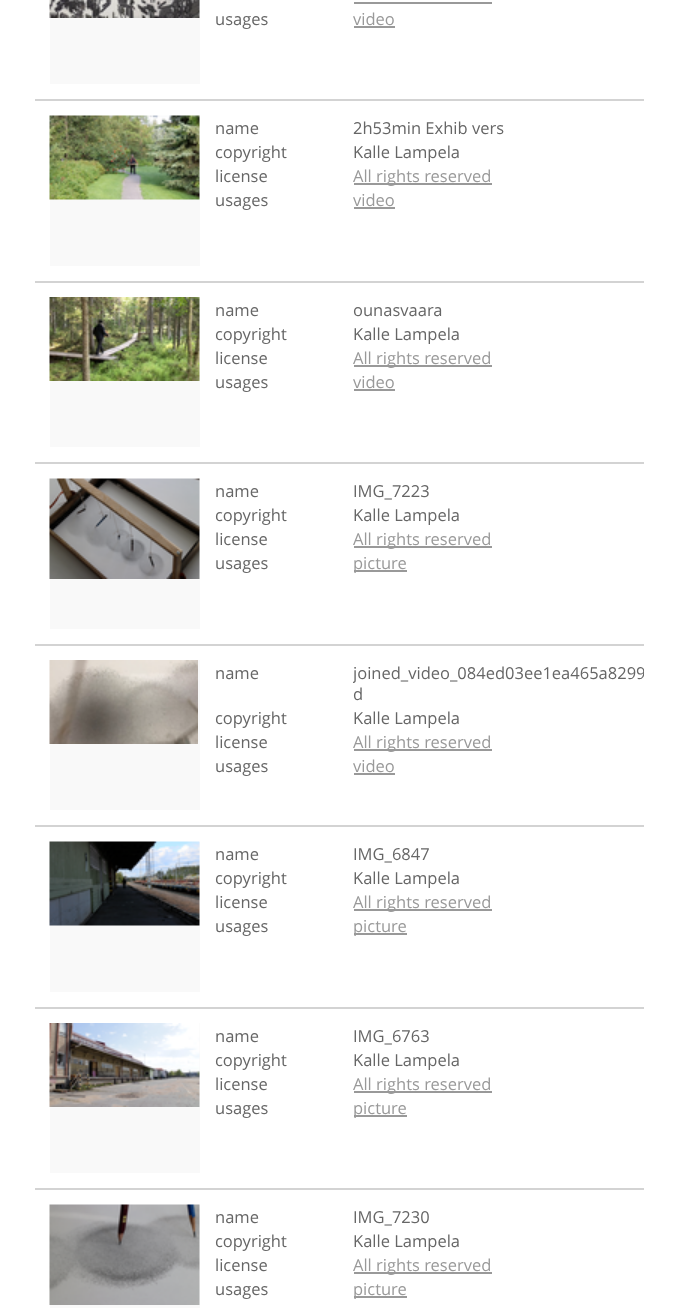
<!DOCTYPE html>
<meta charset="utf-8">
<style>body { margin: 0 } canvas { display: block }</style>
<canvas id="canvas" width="677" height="1308"></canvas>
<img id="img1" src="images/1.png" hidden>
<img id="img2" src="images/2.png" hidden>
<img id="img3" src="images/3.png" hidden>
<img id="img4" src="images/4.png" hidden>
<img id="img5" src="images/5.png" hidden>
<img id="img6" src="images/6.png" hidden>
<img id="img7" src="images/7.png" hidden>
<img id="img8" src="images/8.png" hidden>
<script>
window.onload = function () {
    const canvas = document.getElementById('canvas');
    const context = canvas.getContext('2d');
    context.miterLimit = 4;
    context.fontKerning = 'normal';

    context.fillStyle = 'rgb(255, 255, 255)';
    context.fillRect(0, 0, 677, 1308);
    context.fillStyle = 'rgb(211, 211, 211)';
    context.fillRect(35, 99, 609, 2);
    context.fillStyle = 'rgb(249, 249, 249)';
    context.fillRect(50, 0, 150, 84);
    context.drawImage(document.getElementById('img1'), 49, 0, 151, 18);
    context.fillStyle = 'rgb(153, 153, 153)';
    context.fillRect(354, 2, 138, 2);
    context.fillRect(354, 26, 41, 2);
    context.fillStyle = 'rgb(211, 211, 211)';
    context.fillRect(35, 281, 609, 2);
    context.fillStyle = 'rgb(249, 249, 249)';
    context.fillRect(50, 116, 150, 150);
    context.drawImage(document.getElementById('img2'), 49, 115, 151, 85);
    context.fillStyle = 'rgb(153, 153, 153)';
    context.fillRect(354, 183, 138, 2);
    context.fillRect(354, 207, 41, 2);
    context.fillStyle = 'rgb(211, 211, 211)';
    context.fillRect(35, 462, 609, 2);
    context.fillStyle = 'rgb(249, 249, 249)';
    context.fillRect(50, 297, 150, 150);
    context.drawImage(document.getElementById('img3'), 49, 297, 151, 84);
    context.fillStyle = 'rgb(153, 153, 153)';
    context.fillRect(354, 365, 138, 2);
    context.fillRect(354, 389, 41, 2);
    context.fillStyle = 'rgb(211, 211, 211)';
    context.fillRect(35, 644, 609, 2);
    context.fillStyle = 'rgb(249, 249, 249)';
    context.fillRect(50, 479, 150, 150);
    context.drawImage(document.getElementById('img4'), 49, 478, 151, 101);
    context.fillStyle = 'rgb(153, 153, 153)';
    context.fillRect(354, 546, 138, 2);
    context.fillRect(354, 570, 53, 2);
    context.fillStyle = 'rgb(211, 211, 211)';
    context.fillRect(35, 825, 609, 2);
    context.fillStyle = 'rgb(249, 249, 249)';
    context.fillRect(50, 660, 150, 150);
    context.drawImage(document.getElementById('img5'), 49, 660, 149, 84);
    context.fillStyle = 'rgb(153, 153, 153)';
    context.fillRect(354, 749, 138, 2);
    context.fillRect(354, 773, 41, 2);
    context.fillStyle = 'rgb(211, 211, 211)';
    context.fillRect(35, 1007, 609, 2);
    context.fillStyle = 'rgb(249, 249, 249)';
    context.fillRect(50, 842, 150, 150);
    context.drawImage(document.getElementById('img6'), 49, 841, 151, 85);
    context.fillStyle = 'rgb(153, 153, 153)';
    context.fillRect(354, 909, 138, 2);
    context.fillRect(354, 933, 53, 2);
    context.fillStyle = 'rgb(211, 211, 211)';
    context.fillRect(35, 1188, 609, 2);
    context.fillStyle = 'rgb(249, 249, 249)';
    context.fillRect(50, 1023, 150, 150);
    context.drawImage(document.getElementById('img7'), 49, 1023, 151, 84);
    context.fillStyle = 'rgb(153, 153, 153)';
    context.fillRect(354, 1091, 138, 2);
    context.fillRect(354, 1115, 53, 2);
    context.fillStyle = 'rgb(249, 249, 249)';
    context.fillRect(50, 1205, 150, 103);
    context.drawImage(document.getElementById('img8'), 49, 1204, 151, 101);
    context.fillStyle = 'rgb(153, 153, 153)';
    context.fillRect(354, 1272, 138, 2);
    context.fillRect(354, 1296, 53, 2);
    context.font = '16.5px Open Sans';
    context.fillStyle = 'rgb(102, 102, 102)';
    context.fillText('usages', 215, 25);
    context.fillStyle = 'rgb(153, 153, 153)';
    context.fillText('video', 353, 25);
    context.fillStyle = 'rgb(102, 102, 102)';
    context.fillText('name', 215, 134);
    context.fillText('2h53min Exhib vers', 353, 134);
    context.fillText('copyright', 215, 158);
    context.fillText('Kalle Lampela', 353, 158);
    context.fillText('license', 215, 182);
    context.fillStyle = 'rgb(153, 153, 153)';
    context.fillText('All rights reserved', 353, 182);
    context.fillStyle = 'rgb(102, 102, 102)';
    context.fillText('usages', 215, 206);
    context.fillStyle = 'rgb(153, 153, 153)';
    context.fillText('video', 353, 206);
    context.fillStyle = 'rgb(102, 102, 102)';
    context.fillText('name', 215, 316);
    context.fillText('ounasvaara', 353, 316);
    context.fillText('copyright', 215, 340);
    context.fillText('Kalle Lampela', 353, 340);
    context.fillText('license', 215, 364);
    context.fillStyle = 'rgb(153, 153, 153)';
    context.fillText('All rights reserved', 353, 364);
    context.fillStyle = 'rgb(102, 102, 102)';
    context.fillText('usages', 215, 388);
    context.fillStyle = 'rgb(153, 153, 153)';
    context.fillText('video', 353, 388);
    context.fillStyle = 'rgb(102, 102, 102)';
    context.fillText('name', 215, 497);
    context.fillText('IMG_7223', 353, 497);
    context.fillText('copyright', 215, 521);
    context.fillText('Kalle Lampela', 353, 521);
    context.fillText('license', 215, 545);
    context.fillStyle = 'rgb(153, 153, 153)';
    context.fillText('All rights reserved', 353, 545);
    context.fillStyle = 'rgb(102, 102, 102)';
    context.fillText('usages', 215, 569);
    context.fillStyle = 'rgb(153, 153, 153)';
    context.fillText('picture', 353, 569);
    context.fillStyle = 'rgb(102, 102, 102)';
    context.fillText('name', 215, 679);
    context.save();
    context.beginPath();
    context.rect(353, 660, 291, 45);
    context.clip();
    context.fillText('joined_video_084ed03ee1ea465a8299', 353, 679);
    context.restore();
    context.fillText('d', 353, 700);
    context.fillText('copyright', 215, 724);
    context.fillText('Kalle Lampela', 353, 724);
    context.fillText('license', 215, 748);
    context.fillStyle = 'rgb(153, 153, 153)';
    context.fillText('All rights reserved', 353, 748);
    context.fillStyle = 'rgb(102, 102, 102)';
    context.fillText('usages', 215, 772);
    context.fillStyle = 'rgb(153, 153, 153)';
    context.fillText('video', 353, 772);
    context.fillStyle = 'rgb(102, 102, 102)';
    context.fillText('name', 215, 860);
    context.fillText('IMG_6847', 353, 860);
    context.fillText('copyright', 215, 884);
    context.fillText('Kalle Lampela', 353, 884);
    context.fillText('license', 215, 908);
    context.fillStyle = 'rgb(153, 153, 153)';
    context.fillText('All rights reserved', 353, 908);
    context.fillStyle = 'rgb(102, 102, 102)';
    context.fillText('usages', 215, 932);
    context.fillStyle = 'rgb(153, 153, 153)';
    context.fillText('picture', 353, 932);
    context.fillStyle = 'rgb(102, 102, 102)';
    context.fillText('name', 215, 1042);
    context.fillText('IMG_6763', 353, 1042);
    context.fillText('copyright', 215, 1066);
    context.fillText('Kalle Lampela', 353, 1066);
    context.fillText('license', 215, 1090);
    context.fillStyle = 'rgb(153, 153, 153)';
    context.fillText('All rights reserved', 353, 1090);
    context.fillStyle = 'rgb(102, 102, 102)';
    context.fillText('usages', 215, 1114);
    context.fillStyle = 'rgb(153, 153, 153)';
    context.fillText('picture', 353, 1114);
    context.fillStyle = 'rgb(102, 102, 102)';
    context.fillText('name', 215, 1223);
    context.fillText('IMG_7230', 353, 1223);
    context.fillText('copyright', 215, 1247);
    context.fillText('Kalle Lampela', 353, 1247);
    context.fillText('license', 215, 1271);
    context.fillStyle = 'rgb(153, 153, 153)';
    context.fillText('All rights reserved', 353, 1271);
    context.fillStyle = 'rgb(102, 102, 102)';
    context.fillText('usages', 215, 1295);
    context.fillStyle = 'rgb(153, 153, 153)';
    context.fillText('picture', 353, 1295);
};
</script>
